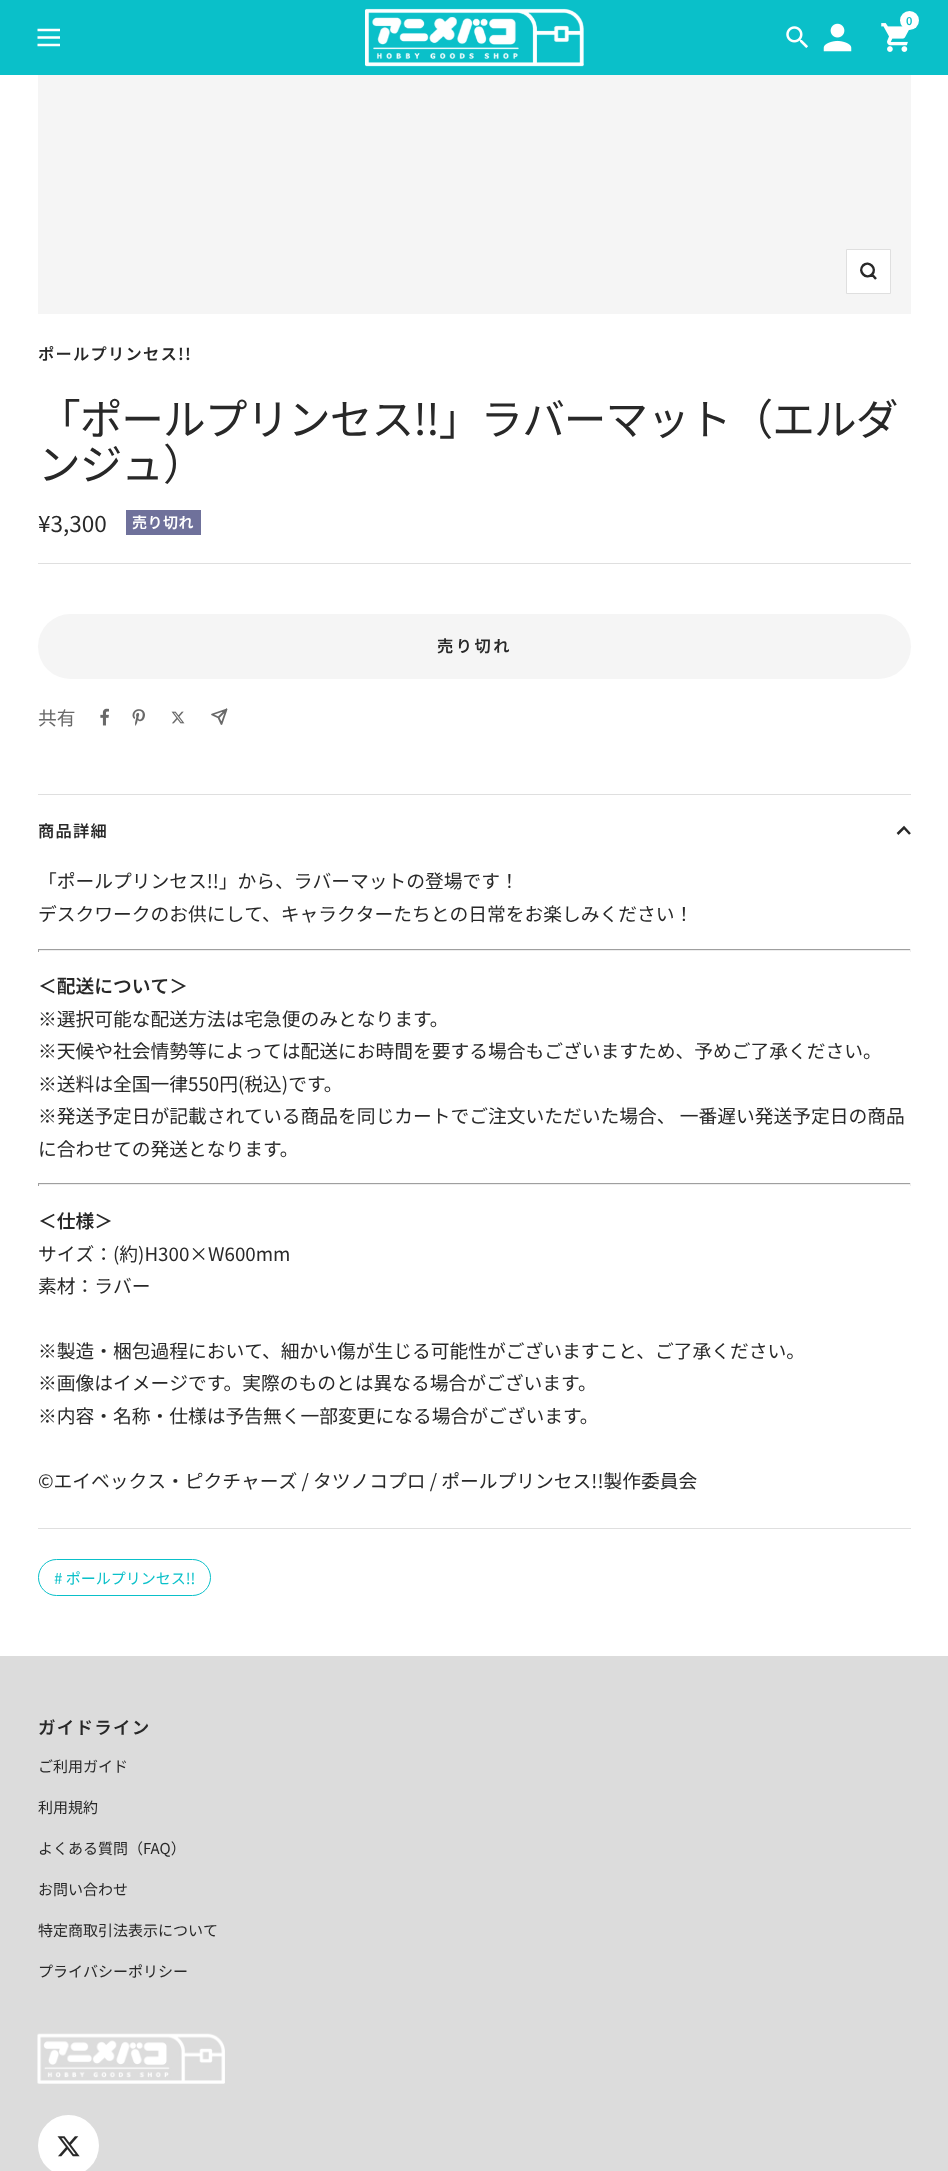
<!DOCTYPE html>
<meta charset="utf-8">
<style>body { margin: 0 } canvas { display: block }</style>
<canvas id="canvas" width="948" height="2171"></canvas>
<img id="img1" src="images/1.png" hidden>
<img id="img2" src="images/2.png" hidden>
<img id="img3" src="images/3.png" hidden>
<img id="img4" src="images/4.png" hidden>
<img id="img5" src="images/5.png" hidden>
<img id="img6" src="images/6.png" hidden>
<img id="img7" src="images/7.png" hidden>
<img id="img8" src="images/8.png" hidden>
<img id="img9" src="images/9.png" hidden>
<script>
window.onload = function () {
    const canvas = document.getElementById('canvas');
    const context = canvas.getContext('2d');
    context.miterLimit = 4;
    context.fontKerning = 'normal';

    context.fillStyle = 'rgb(255, 255, 255)';
    context.fillRect(0, 0, 948, 2171);
    context.fillStyle = 'rgb(10, 192, 201)';
    context.fillRect(0, 0, 948, 75);
    context.drawImage(document.getElementById('img1'), 365, 8, 219, 59);
    context.drawImage(document.getElementById('img2'), 881, 23, 29, 29);
    context.fillStyle = 'rgb(255, 255, 255)';
    context.beginPath();
    context.arc(909.5, 20.5, 9.5, 0, 2 * Math.PI);
    context.fill();
    context.drawImage(document.getElementById('img3'), 823, 23, 29, 29);
    context.drawImage(document.getElementById('img4'), 786, 26, 22, 22);
    context.beginPath();
    context.moveTo(37.5, 30);
    context.lineTo(60, 30);
    context.moveTo(37.5, 45);
    context.lineTo(60, 45);
    context.closePath();
    context.moveTo(37.5, 37.5);
    context.lineTo(60, 37.5);
    context.closePath();
    context.strokeStyle = 'rgb(255, 255, 255)';
    context.lineWidth = 2.5;
    context.stroke();
    context.fillStyle = 'rgb(245, 245, 245)';
    context.fillRect(38, 75, 873, 239);
    context.fillStyle = 'rgb(255, 255, 255)';
    context.beginPath();
    context.rect(846.5, 249.5, 44, 44);
    context.fill();
    context.strokeStyle = 'rgb(223, 223, 223)';
    context.lineWidth = 1;
    context.stroke();
    context.beginPath();
    context.moveTo(872, 274.5);
    context.bezierCurveTo(877.5, 268.5, 869, 260, 863, 265.5);
    context.bezierCurveTo(857.5, 271.5, 866, 280, 872, 274.5);
    context.closePath();
    context.moveTo(872, 274.5);
    context.lineTo(876, 279);
    context.strokeStyle = 'rgb(40, 40, 40)';
    context.lineWidth = 2.5;
    context.stroke();
    context.fillStyle = 'rgb(223, 223, 223)';
    context.fillRect(38, 563, 873, 1);
    context.fillStyle = 'rgb(111, 113, 155)';
    context.fillRect(126, 510, 75, 25);
    context.fillStyle = 'rgb(245, 245, 245)';
    context.beginPath();
    context.roundRect(38, 614, 873, 65, 32.5);
    context.fill();
    context.drawImage(document.getElementById('img5'), 100, 708, 9, 18);
    context.drawImage(document.getElementById('img6'), 132, 709, 13, 17);
    context.drawImage(document.getElementById('img7'), 171, 711, 14, 13);
    context.beginPath();
    context.moveTo(226.5, 709.5);
    context.lineTo(221.5, 724);
    context.lineTo(218.5, 717.5);
    context.moveTo(226.5, 709.5);
    context.lineTo(212, 714.5);
    context.lineTo(218.5, 717.5);
    context.moveTo(226.5, 709.5);
    context.lineTo(218.5, 717.5);
    context.strokeStyle = 'rgb(105, 105, 105)';
    context.lineWidth = 1.8;
    context.lineCap = 'round';
    context.lineJoin = 'round';
    context.stroke();
    context.fillStyle = 'rgb(223, 223, 223)';
    context.fillRect(38, 794, 873, 1);
    context.fillRect(38, 1528, 873, 1);
    context.beginPath();
    context.moveTo(910, 834);
    context.lineTo(904, 827.5);
    context.lineTo(897.5, 834);
    context.strokeStyle = 'rgb(40, 40, 40)';
    context.lineWidth = 2.5;
    context.lineCap = 'butt';
    context.lineJoin = 'miter';
    context.stroke();
    context.fillStyle = 'rgb(159, 159, 159)';
    context.fillRect(38, 949, 873, 1);
    context.fillStyle = 'rgb(238, 238, 238)';
    context.fillRect(910, 949, 1, 3);
    context.fillRect(38, 950, 873, 1);
    context.fillStyle = 'rgb(159, 159, 159)';
    context.fillRect(38, 949, 1, 3);
    context.fillRect(38, 1183, 873, 1);
    context.fillStyle = 'rgb(238, 238, 238)';
    context.fillRect(910, 1183, 1, 3);
    context.fillRect(38, 1184, 873, 1);
    context.fillStyle = 'rgb(159, 159, 159)';
    context.fillRect(38, 1183, 1, 3);
    context.beginPath();
    context.roundRect(38.5, 1559.5, 172, 36, 18);
    context.strokeStyle = 'rgb(10, 192, 201)';
    context.lineWidth = 1;
    context.stroke();
    context.fillStyle = 'rgb(220, 220, 220)';
    context.fillRect(0, 1656, 948, 515);
    context.drawImage(document.getElementById('img8'), 37, 2033, 188, 51);
    context.fillStyle = 'rgb(255, 255, 255)';
    context.beginPath();
    context.arc(68.5, 2145.5, 30.5, 0, 2 * Math.PI);
    context.fill();
    context.drawImage(document.getElementById('img9'), 57, 2136, 23, 21);
    context.font = '600 11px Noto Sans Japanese';
    context.fillStyle = 'rgb(10, 192, 201)';
    context.fillText('0', 906, 25);
    context.letterSpacing = '1.25px';
    context.font = '600 16.25px Noto Sans Japanese';
    context.fillStyle = 'rgb(40, 40, 40)';
    context.fillText('ポールプリンセス!!', 38, 360);
    context.letterSpacing = '-1px';
    context.font = '42.7px Noto Sans Japanese';
    context.fillText('「ポールプリンセス!!」ラバーマット（エルダ', 38, 435);
    context.fillText('ンジュ）', 38, 480);
    context.letterSpacing = '0px';
    context.font = '22.5px Noto Sans Japanese';
    context.fillText('¥3,300', 38, 532);
    context.letterSpacing = '0.5px';
    context.font = '600 15px Noto Sans Japanese';
    context.fillStyle = 'rgb(255, 255, 255)';
    context.fillText('売り切れ', 132, 528);
    context.letterSpacing = '2.5px';
    context.font = '600 16.25px Noto Sans Japanese';
    context.fillStyle = 'rgb(40, 40, 40)';
    context.fillText('売り切れ', 437, 652);
    context.letterSpacing = '0px';
    context.font = '18.75px Noto Sans Japanese';
    context.fillStyle = 'rgb(105, 105, 105)';
    context.fillText('共有', 38, 725);
    context.letterSpacing = '1.25px';
    context.font = '600 16.25px Noto Sans Japanese';
    context.fillStyle = 'rgb(40, 40, 40)';
    context.fillText('商品詳細', 38, 837);
    context.letterSpacing = '0px';
    context.font = '18.75px Noto Sans Japanese';
    context.fillText('「ポールプリンセス!!」から、ラバーマットの登場です！', 38, 888);
    context.fillText('デスクワークのお供にして、キャラクターたちとの日常をお楽しみください！', 38, 921);
    context.font = '600 18.75px Noto Sans Japanese';
    context.fillText('＜配送について＞', 38, 993);
    context.font = '18.75px Noto Sans Japanese';
    context.fillText('※選択可能な配送方法は宅急便のみとなります。', 38, 1026);
    context.fillText('※天候や社会情勢等によっては配送にお時間を要する場合もございますため、予めご了承ください。', 38, 1058);
    context.fillText('※送料は全国一律550円(税込)です。', 38, 1091);
    context.fillText('※発送予定日が記載されている商品を同じカートでご注文いただいた場合、 一番遅い発送予定日の商品', 38, 1123);
    context.fillText('に合わせての発送となります。', 38, 1156);
    context.font = '600 18.75px Noto Sans Japanese';
    context.fillText('＜仕様＞', 38, 1228);
    context.font = '18.75px Noto Sans Japanese';
    context.fillText('サイズ：(約)H300×W600mm', 38, 1261);
    context.fillText('素材：ラバー', 38, 1293);
    context.fillText('※製造・梱包過程において、細かい傷が生じる可能性がございますこと、ご了承ください。', 38, 1358);
    context.fillText('※画像はイメージです。実際のものとは異なる場合がございます。', 38, 1390);
    context.fillText('※内容・名称・仕様は予告無く一部変更になる場合がございます。', 38, 1423);
    context.fillText('©︎エイベックス・ピクチャーズ / タツノコプロ / ポールプリンセス!!製作委員会', 38, 1488);
    context.font = '15px Noto Sans Japanese';
    context.fillStyle = 'rgb(10, 192, 201)';
    context.fillText('# ポールプリンセス!!', 54, 1584);
    context.letterSpacing = '1.25px';
    context.font = '600 17.5px Noto Sans Japanese';
    context.fillStyle = 'rgb(40, 40, 40)';
    context.fillText('ガイドライン', 38, 1734);
    context.letterSpacing = '0px';
    context.font = '15px Noto Sans Japanese';
    context.fillText('ご利用ガイド', 38, 1772);
    context.fillText('利用規約', 38, 1813);
    context.fillText('よくある質問（FAQ）', 38, 1854);
    context.fillText('お問い合わせ', 38, 1895);
    context.fillText('特定商取引法表示について', 38, 1936);
    context.fillText('プライバシーポリシー', 38, 1977);
};
</script>
